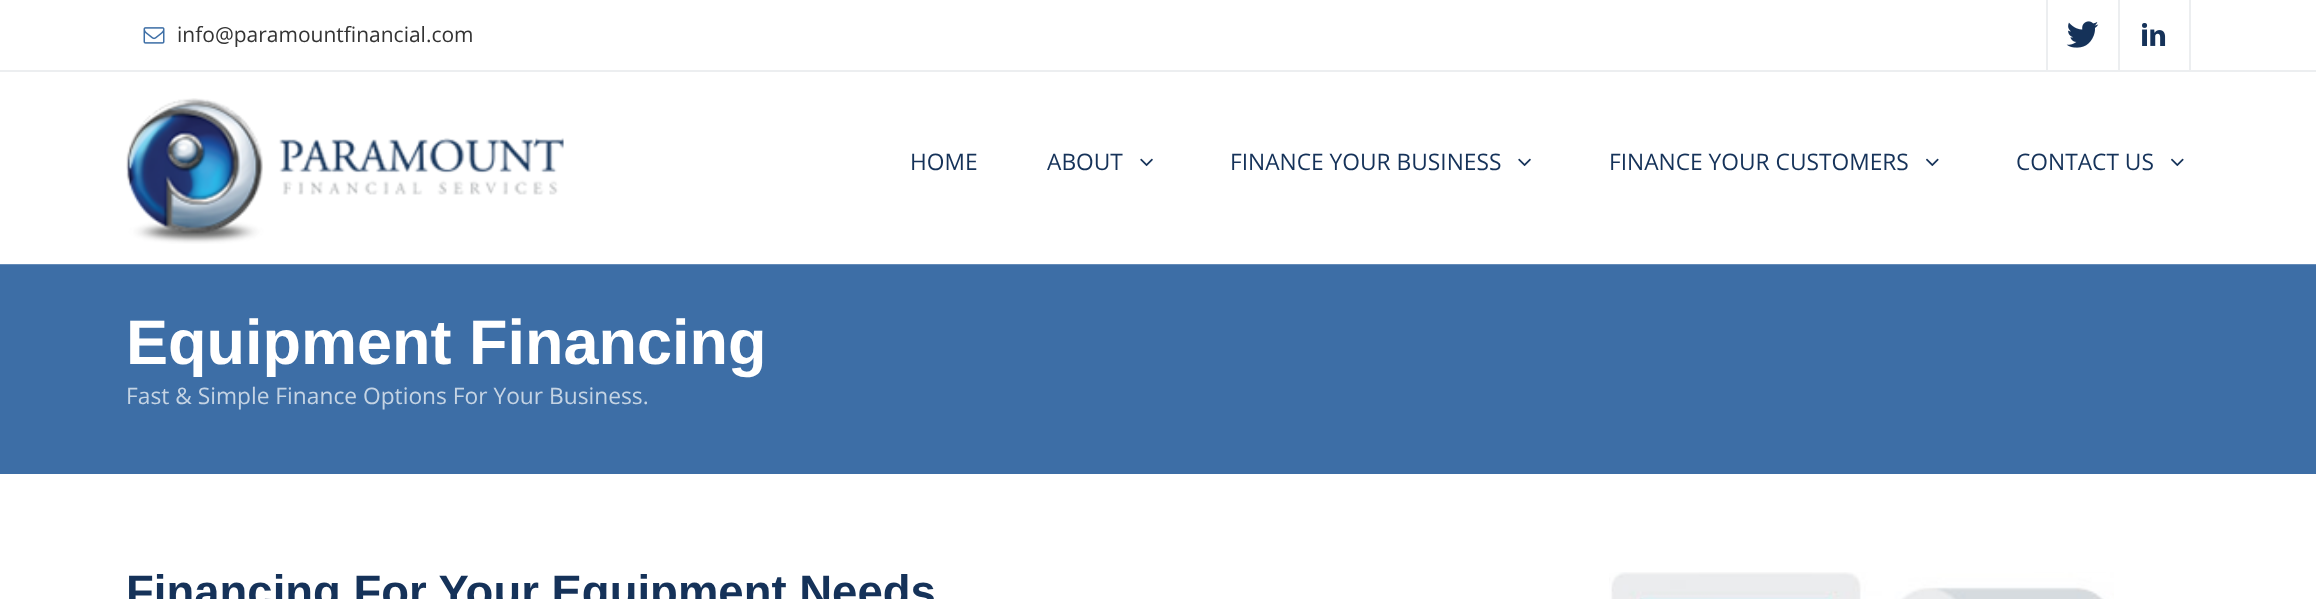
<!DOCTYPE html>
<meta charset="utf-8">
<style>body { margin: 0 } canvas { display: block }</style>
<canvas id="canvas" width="2316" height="599"></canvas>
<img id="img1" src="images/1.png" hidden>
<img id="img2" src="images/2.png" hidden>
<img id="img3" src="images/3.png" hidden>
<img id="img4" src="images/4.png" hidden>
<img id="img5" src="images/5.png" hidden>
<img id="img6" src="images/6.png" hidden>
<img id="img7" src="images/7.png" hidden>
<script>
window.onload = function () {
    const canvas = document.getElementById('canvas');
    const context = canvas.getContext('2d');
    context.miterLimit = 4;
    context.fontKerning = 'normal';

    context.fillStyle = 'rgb(255, 255, 255)';
    context.fillRect(0, 0, 2316, 599);
    context.fillStyle = 'rgb(236, 238, 240)';
    context.fillRect(0, 70, 2316, 2);
    context.drawImage(document.getElementById('img1'), 143, 27, 22, 17);
    context.fillRect(2046, 0, 2, 70);
    context.drawImage(document.getElementById('img2'), 2066, 21, 33, 27);
    context.fillRect(2189, 0, 2, 70);
    context.fillRect(2118, 0, 2, 70);
    context.drawImage(document.getElementById('img3'), 2142, 23, 24, 23);
    context.drawImage(document.getElementById('img4'), 126, 98, 438, 146);
    context.drawImage(document.getElementById('img5'), 1140, 158, 13, 9);
    context.drawImage(document.getElementById('img5'), 1518, 158, 13, 9);
    context.drawImage(document.getElementById('img6'), 1926, 158, 13, 9);
    context.drawImage(document.getElementById('img6'), 2171, 158, 13, 9);
    context.fillStyle = 'rgb(61, 110, 166)';
    context.fillRect(0, 265, 2316, 209);
    context.fillStyle = 'rgb(100, 139, 184)';
    context.fillRect(0, 264, 2316, 1);
    context.drawImage(document.getElementById('img7'), 1609, 572, 505, 27);
    context.font = '21px Open Sans';
    context.fillStyle = 'rgb(51, 51, 51)';
    context.fillText('info@paramountfinancial.com', 177, 42);
    context.font = '22.75px Open Sans';
    context.fillStyle = 'rgb(21, 50, 89)';
    context.fillText('HOME', 910, 170);
    context.fillText('ABOUT', 1047, 170);
    context.fillText('FINANCE YOUR BUSINESS', 1230, 170);
    context.fillText('FINANCE YOUR CUSTOMERS', 1609, 170);
    context.fillText('CONTACT US', 2016, 170);
    context.font = 'bold 63px Liberation Sans';
    context.fillStyle = 'rgb(255, 255, 255)';
    context.fillText('Equipment Financing', 126, 364);
    context.font = '22.75px Open Sans';
    context.fillStyle = 'rgb(197, 212, 228)';
    context.fillText('Fast & Simple Finance Options For Your Business.', 126, 404);
    context.font = 'bold 45.5px Liberation Sans';
    context.fillStyle = 'rgb(21, 50, 89)';
    context.fillText('Financing For Your Equipment Needs', 126, 607);
};
</script>
